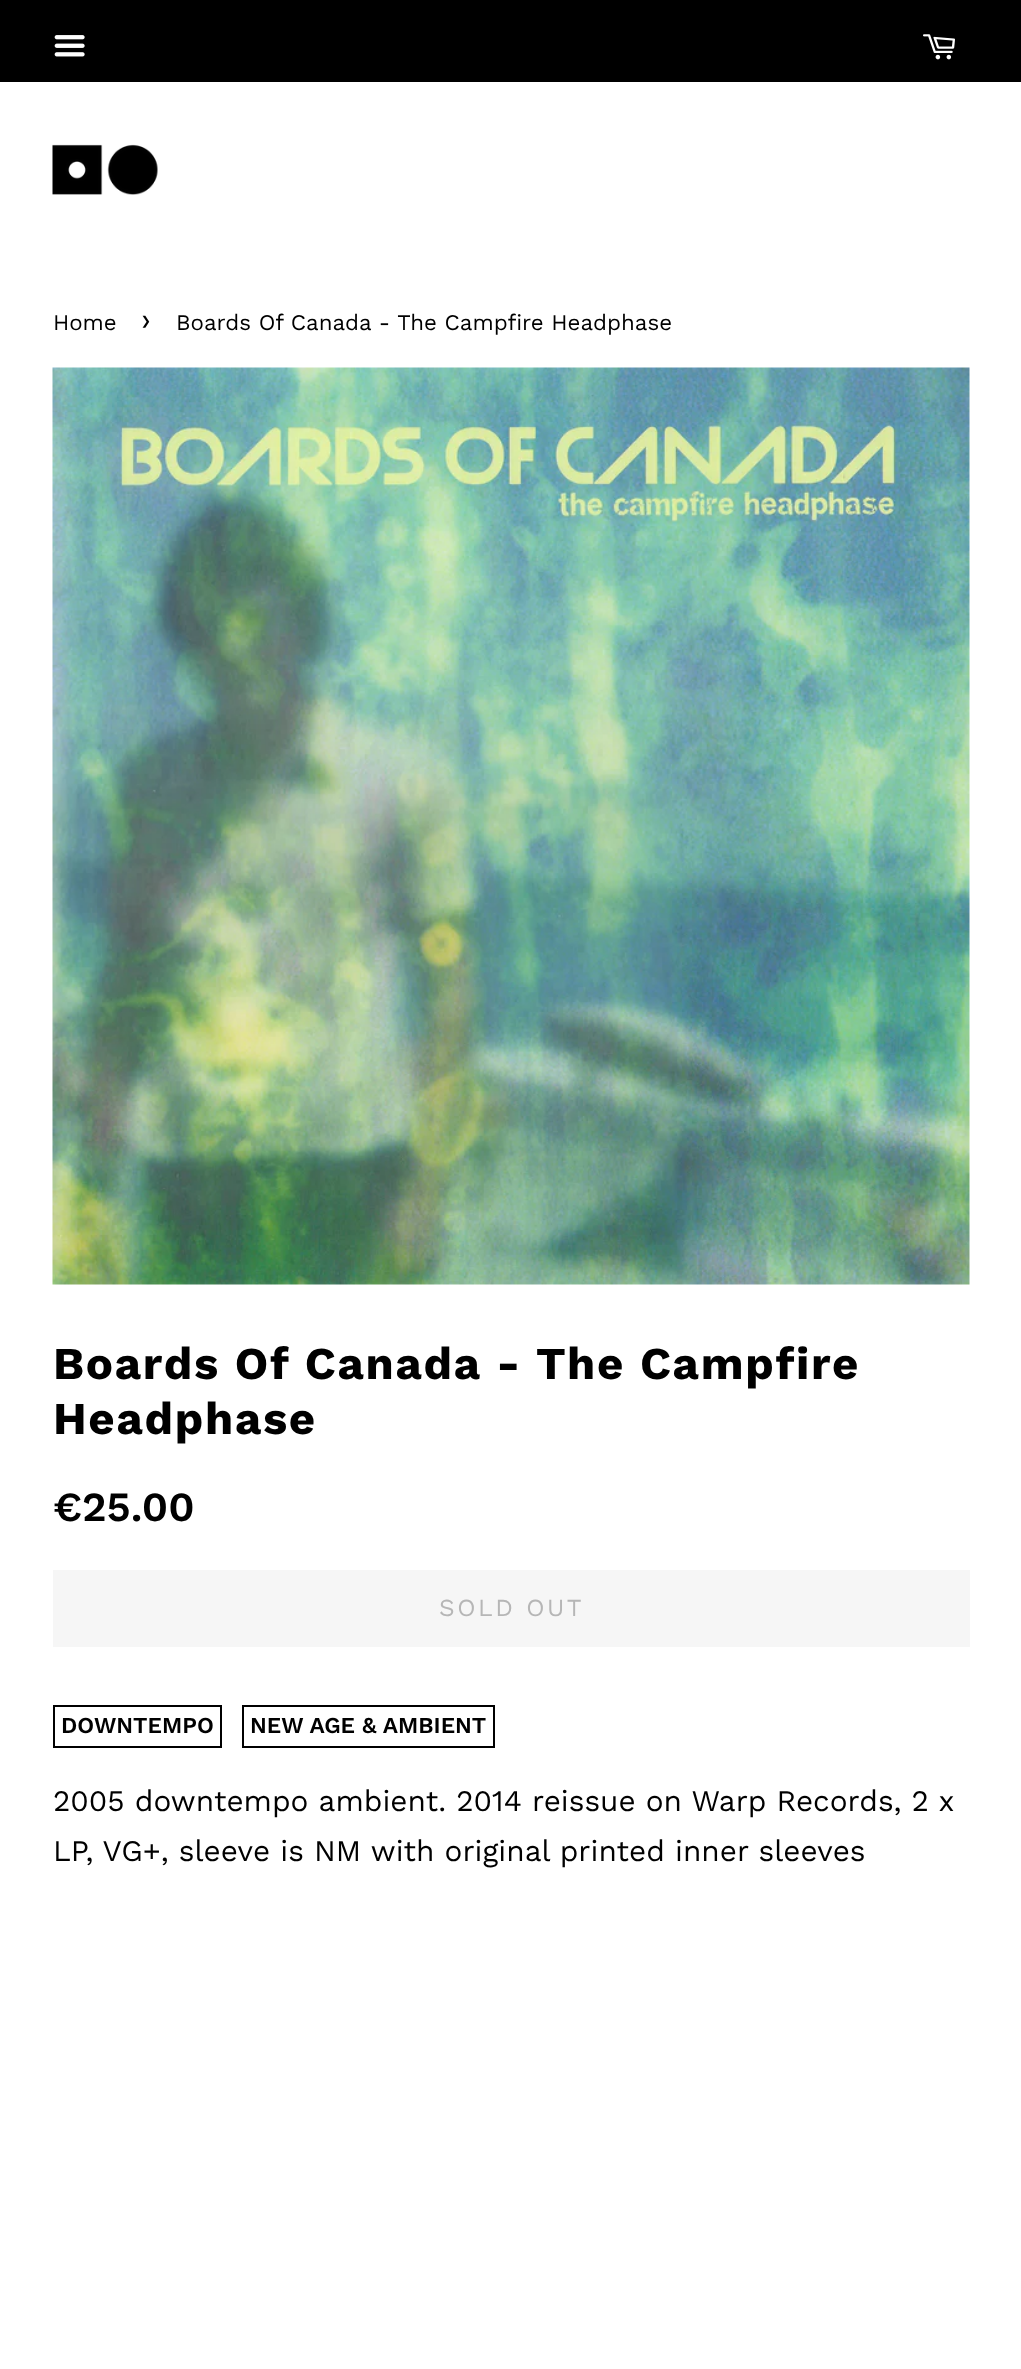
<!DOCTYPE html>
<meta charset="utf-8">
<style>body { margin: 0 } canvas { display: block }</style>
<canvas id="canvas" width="1021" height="2369"></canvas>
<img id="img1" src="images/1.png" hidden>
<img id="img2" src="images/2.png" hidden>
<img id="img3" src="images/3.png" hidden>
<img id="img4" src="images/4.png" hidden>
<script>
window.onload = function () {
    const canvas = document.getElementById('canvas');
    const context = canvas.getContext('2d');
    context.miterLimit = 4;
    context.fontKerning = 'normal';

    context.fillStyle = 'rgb(255, 255, 255)';
    context.fillRect(0, 0, 1021, 2369);
    context.fillStyle = 'rgb(0, 0, 0)';
    context.fillRect(0, 0, 1021, 82);
    context.drawImage(document.getElementById('img1'), 54, 35, 31, 22);
    context.drawImage(document.getElementById('img2'), 923, 34, 32, 26);
    context.drawImage(document.getElementById('img3'), 52, 144, 106, 51);
    context.drawImage(document.getElementById('img4'), 52, 367, 918, 918);
    context.fillStyle = 'rgb(246, 246, 246)';
    context.fillRect(53, 1570, 917, 77);
    context.strokeStyle = 'rgb(0, 0, 0)';
    context.lineWidth = 2;
    context.strokeRect(54, 1706, 167, 41);
    context.strokeRect(243, 1706, 251, 41);
    context.font = '22.3px Work Sans';
    context.fillStyle = 'rgb(0, 0, 0)';
    context.fillText('Home', 53, 330);
    context.font = '31px Work Sans';
    context.fillText('›', 141, 330);
    context.font = '22.3px Work Sans';
    context.fillText('Boards Of Canada - The Campfire Headphase', 176, 330);
    context.letterSpacing = '1.75px';
    context.font = 'bold 45.5px Work Sans';
    context.fillText('Boards Of Canada - The Campfire', 53, 1379);
    context.fillText('Headphase', 53, 1434);
    context.letterSpacing = '0px';
    context.font = '600 41.5px Work Sans';
    context.fillText('€25.00', 53, 1521);
    context.letterSpacing = '2.5px';
    context.font = '24.5px Work Sans';
    context.fillStyle = 'rgb(182, 182, 182)';
    context.fillText('SOLD OUT', 439, 1616);
    context.letterSpacing = '0px';
    context.font = '600 22.75px Work Sans';
    context.fillStyle = 'rgb(0, 0, 0)';
    context.fillText('DOWNTEMPO', 61, 1733);
    context.fillText('NEW AGE & AMBIENT', 250, 1733);
    context.font = '29.75px Work Sans';
    context.fillText('2005 downtempo ambient. 2014 reissue on Warp Records, 2 x', 53, 1811);
    context.fillText('LP, VG+, sleeve is NM with original printed inner sleeves', 53, 1861);
};
</script>
